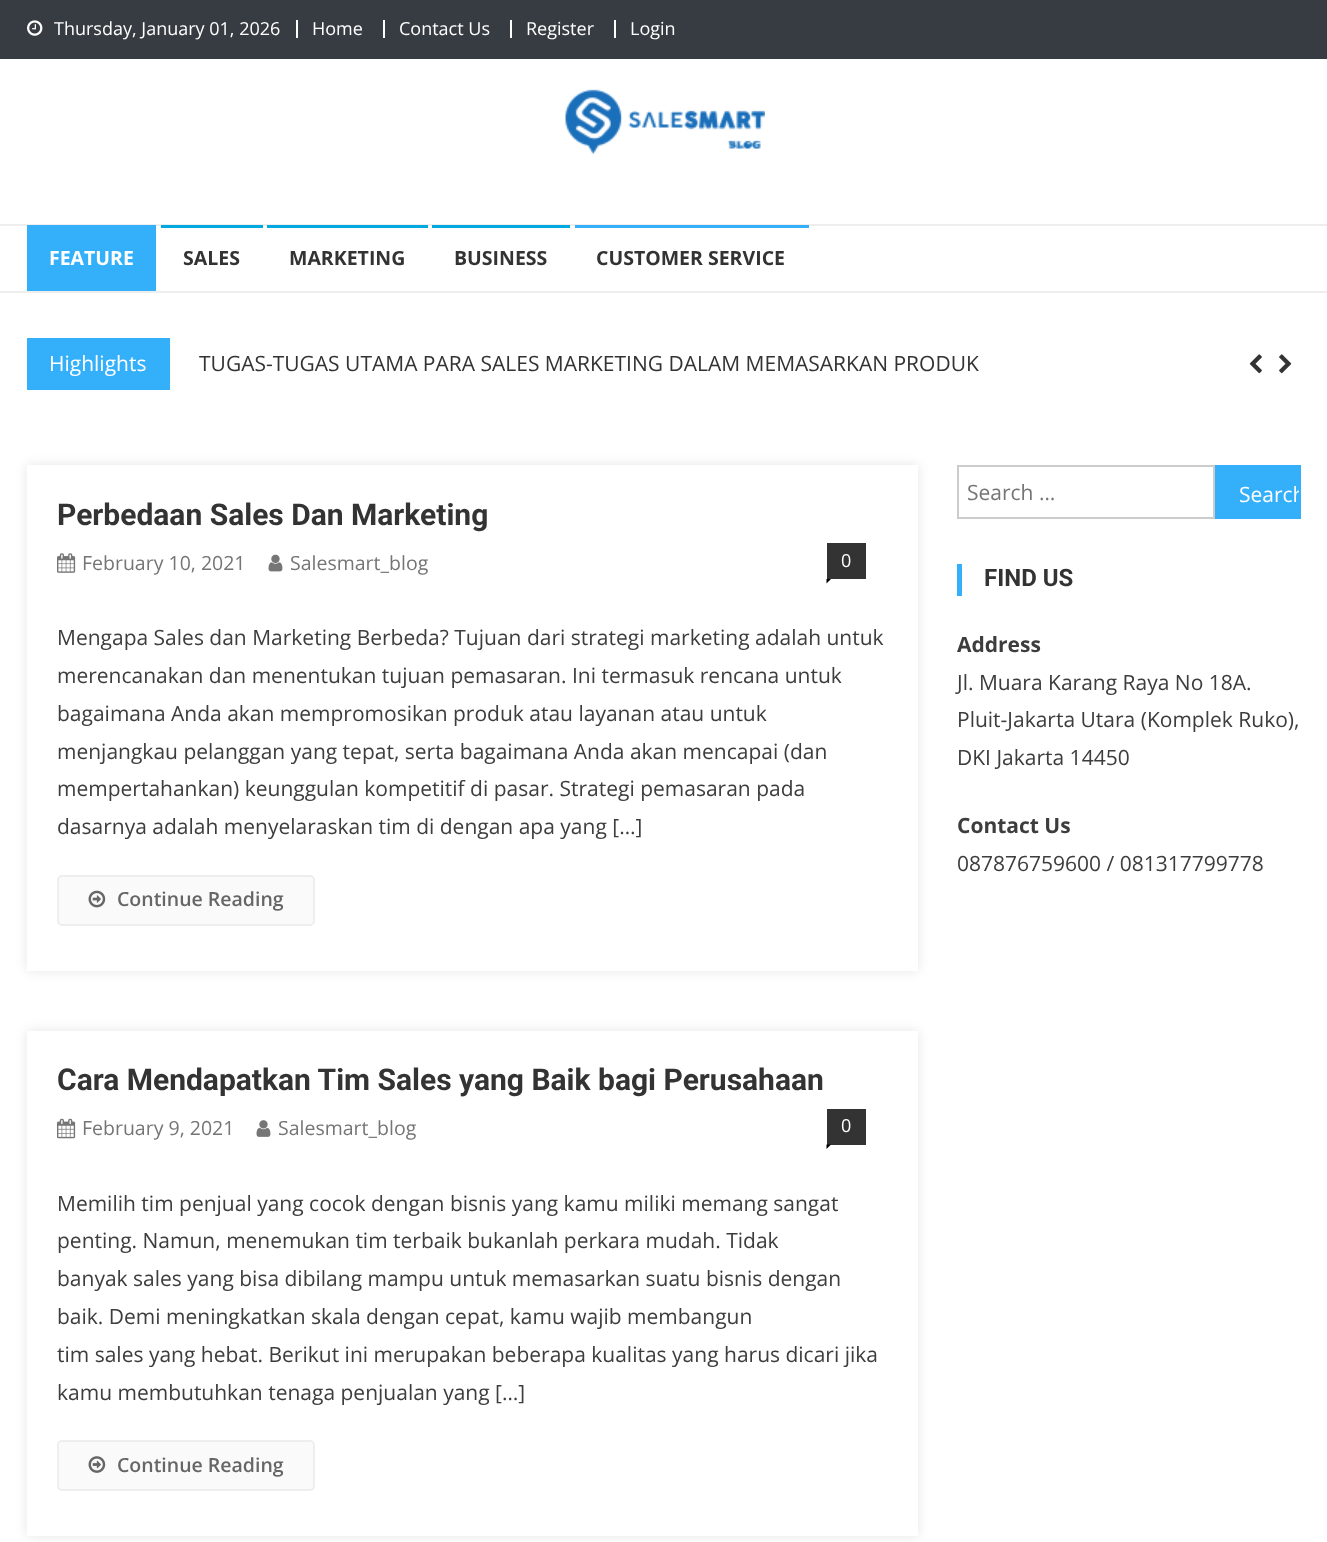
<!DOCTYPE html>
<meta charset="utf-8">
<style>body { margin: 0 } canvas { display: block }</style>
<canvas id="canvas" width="1327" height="1542"></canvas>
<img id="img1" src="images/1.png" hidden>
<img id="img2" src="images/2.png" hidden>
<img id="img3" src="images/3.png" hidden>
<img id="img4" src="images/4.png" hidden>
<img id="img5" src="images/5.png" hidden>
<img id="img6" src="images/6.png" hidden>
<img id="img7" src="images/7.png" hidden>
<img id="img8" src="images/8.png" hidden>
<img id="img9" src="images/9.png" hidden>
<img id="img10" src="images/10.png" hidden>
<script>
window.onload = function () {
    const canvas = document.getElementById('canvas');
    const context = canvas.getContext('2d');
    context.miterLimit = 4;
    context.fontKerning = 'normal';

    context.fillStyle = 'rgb(255, 255, 255)';
    context.fillRect(0, 0, 1327, 1542);
    context.fillStyle = 'rgb(55, 60, 66)';
    context.fillRect(0, 0, 1327, 59);
    context.drawImage(document.getElementById('img1'), 27, 20, 16, 16);
    context.fillStyle = 'rgb(255, 255, 255)';
    context.fillRect(296, 20, 2, 18);
    context.fillRect(383, 20, 2, 18);
    context.fillRect(510, 20, 2, 18);
    context.fillRect(614, 20, 2, 18);
    context.drawImage(document.getElementById('img2'), 565, 89, 200, 66);
    context.fillStyle = 'rgb(238, 238, 238)';
    context.fillRect(0, 224, 1327, 2);
    context.fillRect(0, 291, 1327, 2);
    context.fillStyle = 'rgb(52, 176, 250)';
    context.fillRect(27, 225, 129, 66);
    context.fillStyle = 'rgb(0, 169, 224)';
    context.fillRect(161, 225, 102, 3);
    context.fillRect(267, 225, 161, 3);
    context.fillRect(432, 225, 138, 3);
    context.fillStyle = 'rgb(52, 176, 250)';
    context.fillRect(575, 225, 234, 3);
    context.fillRect(27, 338, 143, 52);
    context.drawImage(document.getElementById('img3'), 1249, 354, 13, 20);
    context.drawImage(document.getElementById('img4'), 1279, 354, 13, 20);
    context.fillStyle = 'rgba(0, 0, 0, 0.1)';
    context.filter = 'blur(6px)';
    context.beginPath();
    context.rect(27, 465, 891, 506);
    context.fill();
    context.filter = 'none';
    context.fillStyle = 'rgb(255, 255, 255)';
    context.fillRect(27, 465, 891, 506);
    context.drawImage(document.getElementById('img5'), 57, 553, 19, 20);
    context.drawImage(document.getElementById('img6'), 268, 554, 15, 18);
    context.fillStyle = 'rgb(51, 51, 51)';
    context.fillRect(827, 543, 39, 36);
    context.fillStyle = 'rgb(0, 0, 0)';
    context.beginPath();
    context.moveTo(826.5, 579);
    context.lineTo(831, 579);
    context.lineTo(826.5, 583.5);
    context.closePath();
    context.fill();
    context.fillStyle = 'rgb(250, 250, 250)';
    context.beginPath();
    context.roundRect(58, 876, 256, 49, 4);
    context.fill();
    context.strokeStyle = 'rgb(238, 238, 238)';
    context.lineWidth = 2;
    context.stroke();
    context.drawImage(document.getElementById('img7'), 88, 890, 18, 18);
    context.save();
    context.beginPath();
    context.moveTo(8, 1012);
    context.lineTo(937, 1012);
    context.lineTo(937, 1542);
    context.lineTo(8, 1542);
    context.closePath();
    context.moveTo(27, 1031);
    context.lineTo(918, 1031);
    context.lineTo(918, 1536);
    context.lineTo(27, 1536);
    context.closePath();
    context.clip('evenodd');
    context.fillStyle = 'rgba(0, 0, 0, 0.1)';
    context.filter = 'blur(6px)';
    context.beginPath();
    context.rect(27, 1031, 891, 505);
    context.fill();
    context.filter = 'none';
    context.restore();
    context.drawImage(document.getElementById('img8'), 57, 1118, 19, 21);
    context.drawImage(document.getElementById('img9'), 256, 1120, 15, 17);
    context.fillStyle = 'rgb(51, 51, 51)';
    context.fillRect(827, 1109, 39, 36);
    context.fillStyle = 'rgb(0, 0, 0)';
    context.beginPath();
    context.moveTo(826.5, 1144.5);
    context.lineTo(831, 1144.5);
    context.lineTo(826.5, 1149);
    context.closePath();
    context.fill();
    context.fillStyle = 'rgb(250, 250, 250)';
    context.beginPath();
    context.roundRect(58, 1441, 256, 49, 4);
    context.fill();
    context.stroke();
    context.drawImage(document.getElementById('img10'), 88, 1456, 18, 17);
    context.strokeStyle = 'rgb(204, 204, 204)';
    context.strokeRect(958, 466, 256, 52);
    context.fillStyle = 'rgb(52, 176, 250)';
    context.fillRect(1215, 465, 86, 54);
    context.fillRect(957, 564, 5, 32);
    context.font = '18px Open Sans';
    context.fillStyle = 'rgb(255, 255, 255)';
    context.fillText('Thursday, January 01, 2026', 54, 35);
    context.fillText('Home', 312, 35);
    context.fillText('Contact Us', 399, 35);
    context.fillText('Register', 526, 35);
    context.fillText('Login', 630, 35);
    context.font = 'bold 19.5px Open Sans';
    context.fillText('FEATURE', 49, 265);
    context.fillStyle = 'rgb(51, 51, 51)';
    context.fillText('SALES', 183, 265);
    context.fillText('MARKETING', 289, 265);
    context.fillText('BUSINESS', 454, 265);
    context.fillText('CUSTOMER SERVICE', 596, 265);
    context.font = '21px Open Sans';
    context.fillStyle = 'rgb(255, 255, 255)';
    context.fillText('Highlights', 49, 371);
    context.fillStyle = 'rgb(51, 51, 51)';
    context.fillText('TUGAS-TUGAS UTAMA PARA SALES MARKETING DALAM MEMASARKAN PRODUK', 199, 371);
    context.font = 'bold 30px Roboto';
    context.fillText('Perbedaan Sales Dan Marketing', 57, 525);
    context.font = '19.5px Open Sans';
    context.fillStyle = 'rgb(117, 117, 117)';
    context.fillText('February 10, 2021', 82, 570);
    context.fillText('Salesmart_blog', 290, 570);
    context.font = '18px Open Sans';
    context.fillStyle = 'rgb(255, 255, 255)';
    context.fillText('0', 841, 567);
    context.font = '21px Open Sans';
    context.fillStyle = 'rgb(61, 61, 61)';
    context.fillText('Mengapa Sales dan Marketing Berbeda? Tujuan dari strategi marketing adalah untuk', 57, 645);
    context.fillText('merencanakan dan menentukan tujuan pemasaran. Ini termasuk rencana untuk', 57, 683);
    context.fillText('bagaimana Anda akan mempromosikan produk atau layanan atau untuk', 57, 721);
    context.fillText('menjangkau pelanggan yang tepat, serta bagaimana Anda akan mencapai (dan', 57, 759);
    context.fillText('mempertahankan) keunggulan kompetitif di pasar. Strategi pemasaran pada', 57, 796);
    context.fillText('dasarnya adalah menyelaraskan tim di dengan apa yang […]', 57, 834);
    context.font = '600 19.5px Open Sans';
    context.fillStyle = 'rgb(102, 102, 102)';
    context.fillText('Continue Reading', 117, 906);
    context.font = 'bold 30px Roboto';
    context.fillStyle = 'rgb(51, 51, 51)';
    context.fillText('Cara Mendapatkan Tim Sales yang Baik bagi Perusahaan', 57, 1090);
    context.font = '19.5px Open Sans';
    context.fillStyle = 'rgb(117, 117, 117)';
    context.fillText('February 9, 2021', 82, 1135);
    context.fillText('Salesmart_blog', 278, 1135);
    context.font = '18px Open Sans';
    context.fillStyle = 'rgb(255, 255, 255)';
    context.fillText('0', 841, 1132);
    context.font = '21px Open Sans';
    context.fillStyle = 'rgb(61, 61, 61)';
    context.fillText('Memilih tim penjual yang cocok dengan bisnis yang kamu miliki memang sangat', 57, 1211);
    context.fillText('penting. Namun, menemukan tim terbaik bukanlah perkara mudah. Tidak', 57, 1248);
    context.fillText('banyak sales yang bisa dibilang mampu untuk memasarkan suatu bisnis dengan', 57, 1286);
    context.fillText('baik. Demi meningkatkan skala dengan cepat, kamu wajib membangun', 57, 1324);
    context.fillText('tim sales yang hebat. Berikut ini merupakan beberapa kualitas yang harus dicari jika', 57, 1362);
    context.fillText('kamu membutuhkan tenaga penjualan yang […]', 57, 1400);
    context.font = '600 19.5px Open Sans';
    context.fillStyle = 'rgb(102, 102, 102)';
    context.fillText('Continue Reading', 117, 1472);
    context.font = '21px Open Sans';
    context.fillStyle = 'rgb(117, 117, 117)';
    context.fillText('Search …', 967, 500);
    context.save();
    context.beginPath();
    context.rect(1217, 467, 82, 51);
    context.clip();
    context.fillStyle = 'rgb(255, 255, 255)';
    context.fillText('Search', 1239, 502);
    context.restore();
    context.font = 'bold 24px Roboto';
    context.fillStyle = 'rgb(51, 51, 51)';
    context.fillText('FIND US', 984, 586);
    context.font = 'bold 21px Open Sans';
    context.fillStyle = 'rgb(61, 61, 61)';
    context.fillText('Address', 957, 652);
    context.font = '21px Open Sans';
    context.fillText('Jl. Muara Karang Raya No 18A.', 957, 690);
    context.fillText('Pluit-Jakarta Utara (Komplek Ruko),', 957, 727);
    context.fillText('DKI Jakarta 14450', 957, 765);
    context.font = 'bold 21px Open Sans';
    context.fillText('Contact Us', 957, 833);
    context.font = '21px Open Sans';
    context.fillText('087876759600 / 081317799778', 957, 871);
};
</script>
